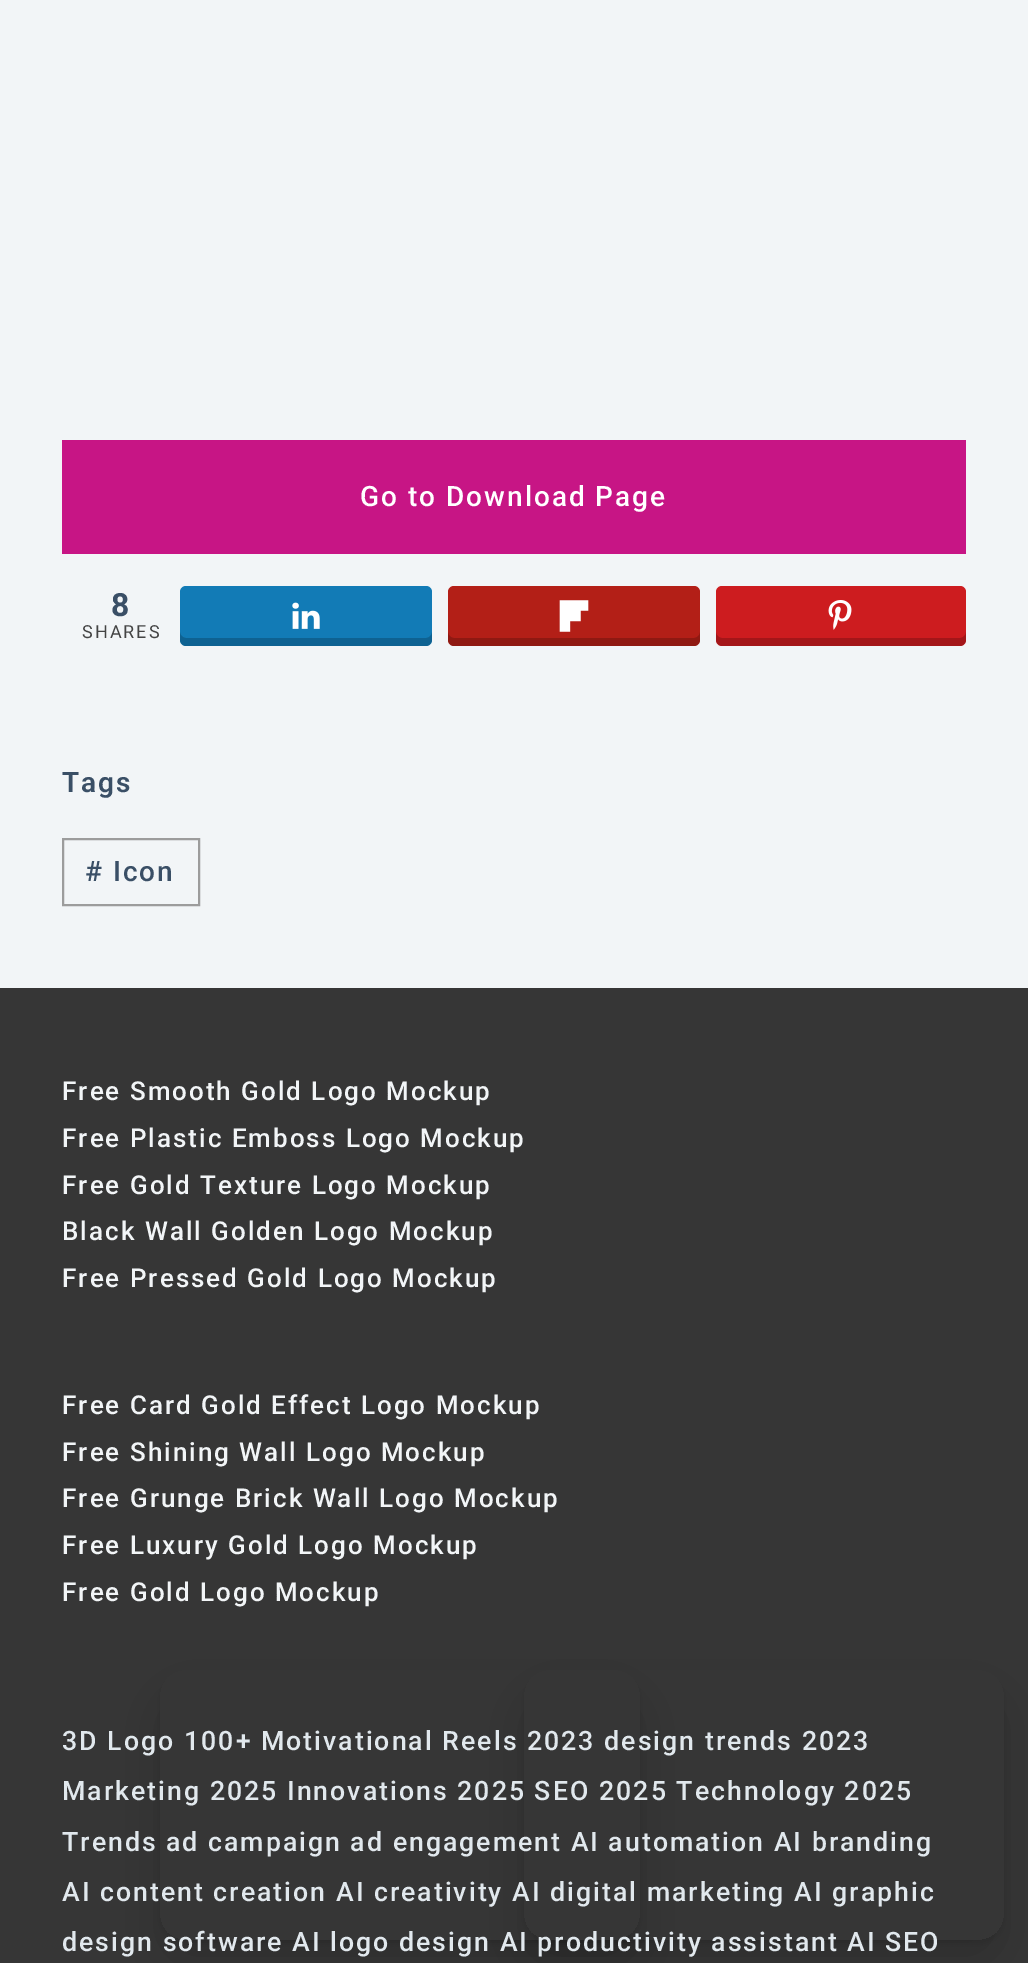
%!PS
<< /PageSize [1028 1963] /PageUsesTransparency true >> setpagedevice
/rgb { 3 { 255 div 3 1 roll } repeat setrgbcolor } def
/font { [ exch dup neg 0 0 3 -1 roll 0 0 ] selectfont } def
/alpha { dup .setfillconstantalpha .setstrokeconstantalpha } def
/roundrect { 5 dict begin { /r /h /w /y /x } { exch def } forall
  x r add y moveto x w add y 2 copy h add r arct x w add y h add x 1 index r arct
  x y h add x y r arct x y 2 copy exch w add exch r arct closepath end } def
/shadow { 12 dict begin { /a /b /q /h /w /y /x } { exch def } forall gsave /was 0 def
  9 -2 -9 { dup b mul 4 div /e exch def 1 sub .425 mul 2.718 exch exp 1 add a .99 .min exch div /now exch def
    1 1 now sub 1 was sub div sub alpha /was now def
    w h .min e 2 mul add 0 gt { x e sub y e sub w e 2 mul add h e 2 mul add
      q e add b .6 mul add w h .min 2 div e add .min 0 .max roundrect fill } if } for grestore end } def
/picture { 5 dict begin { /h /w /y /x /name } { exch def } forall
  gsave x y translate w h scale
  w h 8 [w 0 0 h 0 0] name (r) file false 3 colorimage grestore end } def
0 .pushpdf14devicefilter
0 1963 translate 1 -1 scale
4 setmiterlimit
242 245 247 rgb
0 0 1028 1963 rectfill
199 21 133 rgb
62 440 904 114 rectfill
18 123 182 rgb
180 586 252 60 6 roundrect fill
0.2 alpha
0 0 0 rgb
180 632 moveto 0 8 rlineto 0 3 3 6 6 6 rcurveto 240 0 rlineto 3 0 6 -3 6 -6 rcurveto 0 -8 rlineto 0 3 -3 6 -6 6 rcurveto -240 0 rlineto -3 0 -6 -3 -6 -6 rcurveto closepath fill
1 alpha
(img_01.rgb) 292 602 28 27 picture
179 31 23 rgb
448 586 252 60 6 roundrect fill
0.2 alpha
0 0 0 rgb
448 632 moveto 0 8 rlineto 0 3 3 6 6 6 rcurveto 240 0 rlineto 3 0 6 -3 6 -6 rcurveto 0 -8 rlineto 0 3 -3 6 -6 6 rcurveto -240 0 rlineto -3 0 -6 -3 -6 -6 rcurveto closepath fill
1 alpha
(img_02.rgb) 559 600 30 32 picture
205 28 31 rgb
716 586 250 60 6 roundrect fill
0.2 alpha
0 0 0 rgb
716 632 moveto 0 8 rlineto 0 3 3 6 6 6 rcurveto 238 0 rlineto 3 0 6 -3 6 -6 rcurveto 0 -8 rlineto 0 3 -3 6 -6 6 rcurveto -238 0 rlineto -3 0 -6 -3 -6 -6 rcurveto closepath fill
1 alpha
(img_03.rgb) 828 600 24 30 picture
156 156 156 rgb
2 setlinewidth
63 839 136 66 rectstroke
54 54 54 rgb
0 988 1028 975 rectfill
gsave
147 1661 moveto 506 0 rlineto 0 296 rlineto -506 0 rlineto closepath 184 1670 moveto 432 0 rlineto 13.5 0 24 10.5 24 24 rcurveto 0 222 rlineto 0 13.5 -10.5 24 -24 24 rcurveto -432 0 rlineto -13.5 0 -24 -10.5 -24 -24 rcurveto 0 -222 rlineto 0 -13.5 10.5 -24 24 -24 rcurveto closepath eoclip newpath
0 0 0 rgb
160 1674 480 270 24 4 0.08 shadow
grestore
gsave
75 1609 moveto 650 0 rlineto 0 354 rlineto -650 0 rlineto closepath 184 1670 moveto 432 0 rlineto 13.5 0 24 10.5 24 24 rcurveto 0 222 rlineto 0 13.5 -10.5 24 -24 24 rcurveto -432 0 rlineto -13.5 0 -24 -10.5 -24 -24 rcurveto 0 -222 rlineto 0 -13.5 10.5 -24 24 -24 rcurveto closepath eoclip newpath
0 0 0 rgb
160 1694 480 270 24 28 0.18 shadow
grestore
gsave
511 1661 moveto 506 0 rlineto 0 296 rlineto -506 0 rlineto closepath 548 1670 moveto 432 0 rlineto 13.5 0 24 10.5 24 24 rcurveto 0 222 rlineto 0 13.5 -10.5 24 -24 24 rcurveto -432 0 rlineto -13.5 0 -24 -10.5 -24 -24 rcurveto 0 -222 rlineto 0 -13.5 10.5 -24 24 -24 rcurveto closepath eoclip newpath
0 0 0 rgb
524 1674 480 270 24 4 0.08 shadow
grestore
gsave
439 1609 moveto 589 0 rlineto 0 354 rlineto -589 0 rlineto closepath 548 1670 moveto 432 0 rlineto 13.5 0 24 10.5 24 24 rcurveto 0 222 rlineto 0 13.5 -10.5 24 -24 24 rcurveto -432 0 rlineto -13.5 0 -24 -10.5 -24 -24 rcurveto 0 -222 rlineto 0 -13.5 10.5 -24 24 -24 rcurveto closepath eoclip newpath
0 0 0 rgb
524 1694 480 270 24 28 0.18 shadow
grestore
/Roboto-Medium 28 font
255 255 255 rgb
360 506 moveto 2 0 (Go to Download Page) ashow
/Roboto-Bold 32 font
58 79 102 rgb
111 616 moveto 2 0 (8) ashow
/Roboto-Regular 18 font
68 68 68 rgb
82 638 moveto 2 0 (SHARES) ashow
/Roboto-SemiBold 28 font
58 79 102 rgb
62 792 moveto 2 0 (Tags) ashow
/Roboto-Medium 28 font
85 881 moveto 2 0 (# Icon) ashow
/Roboto-Medium 26 font
242 245 247 rgb
62 1100 moveto 2 0 (Free Smooth Gold Logo Mockup) ashow
62 1147 moveto 2 0 (Free Plastic Emboss Logo Mockup) ashow
62 1194 moveto 2 0 (Free Gold Texture Logo Mockup) ashow
62 1240 moveto 2 0 (Black Wall Golden Logo Mockup) ashow
62 1287 moveto 2 0 (Free Pressed Gold Logo Mockup) ashow
62 1414 moveto 2 0 (Free Card Gold Effect Logo Mockup) ashow
62 1461 moveto 2 0 (Free Shining Wall Logo Mockup) ashow
62 1507 moveto 2 0 (Free Grunge Brick Wall Logo Mockup) ashow
62 1554 moveto 2 0 (Free Luxury Gold Logo Mockup) ashow
62 1601 moveto 2 0 (Free Gold Logo Mockup) ashow
/Roboto-Medium 26.7 font
225 232 237 rgb
62 1750 moveto 2 0 (3D Logo) ashow
184 1750 moveto 2 0 (100+ Motivational Reels 2023 design trends 2023) ashow
62 1800 moveto 2 0 (Marketing 2025 Innovations 2025 SEO) ashow
599 1800 moveto 2 0 (2025 Technology 2025) ashow
62 1851 moveto 2 0 (Trends) ashow
166 1851 moveto 2 0 (ad campaign ad engagement AI automation AI branding) ashow
62 1901 moveto 2 0 (AI content creation AI creativity AI digital marketing AI graphic) ashow
62 1951 moveto 2 0 (design software AI logo design AI productivity assistant AI SEO) ashow
.poppdf14devicefilter showpage
